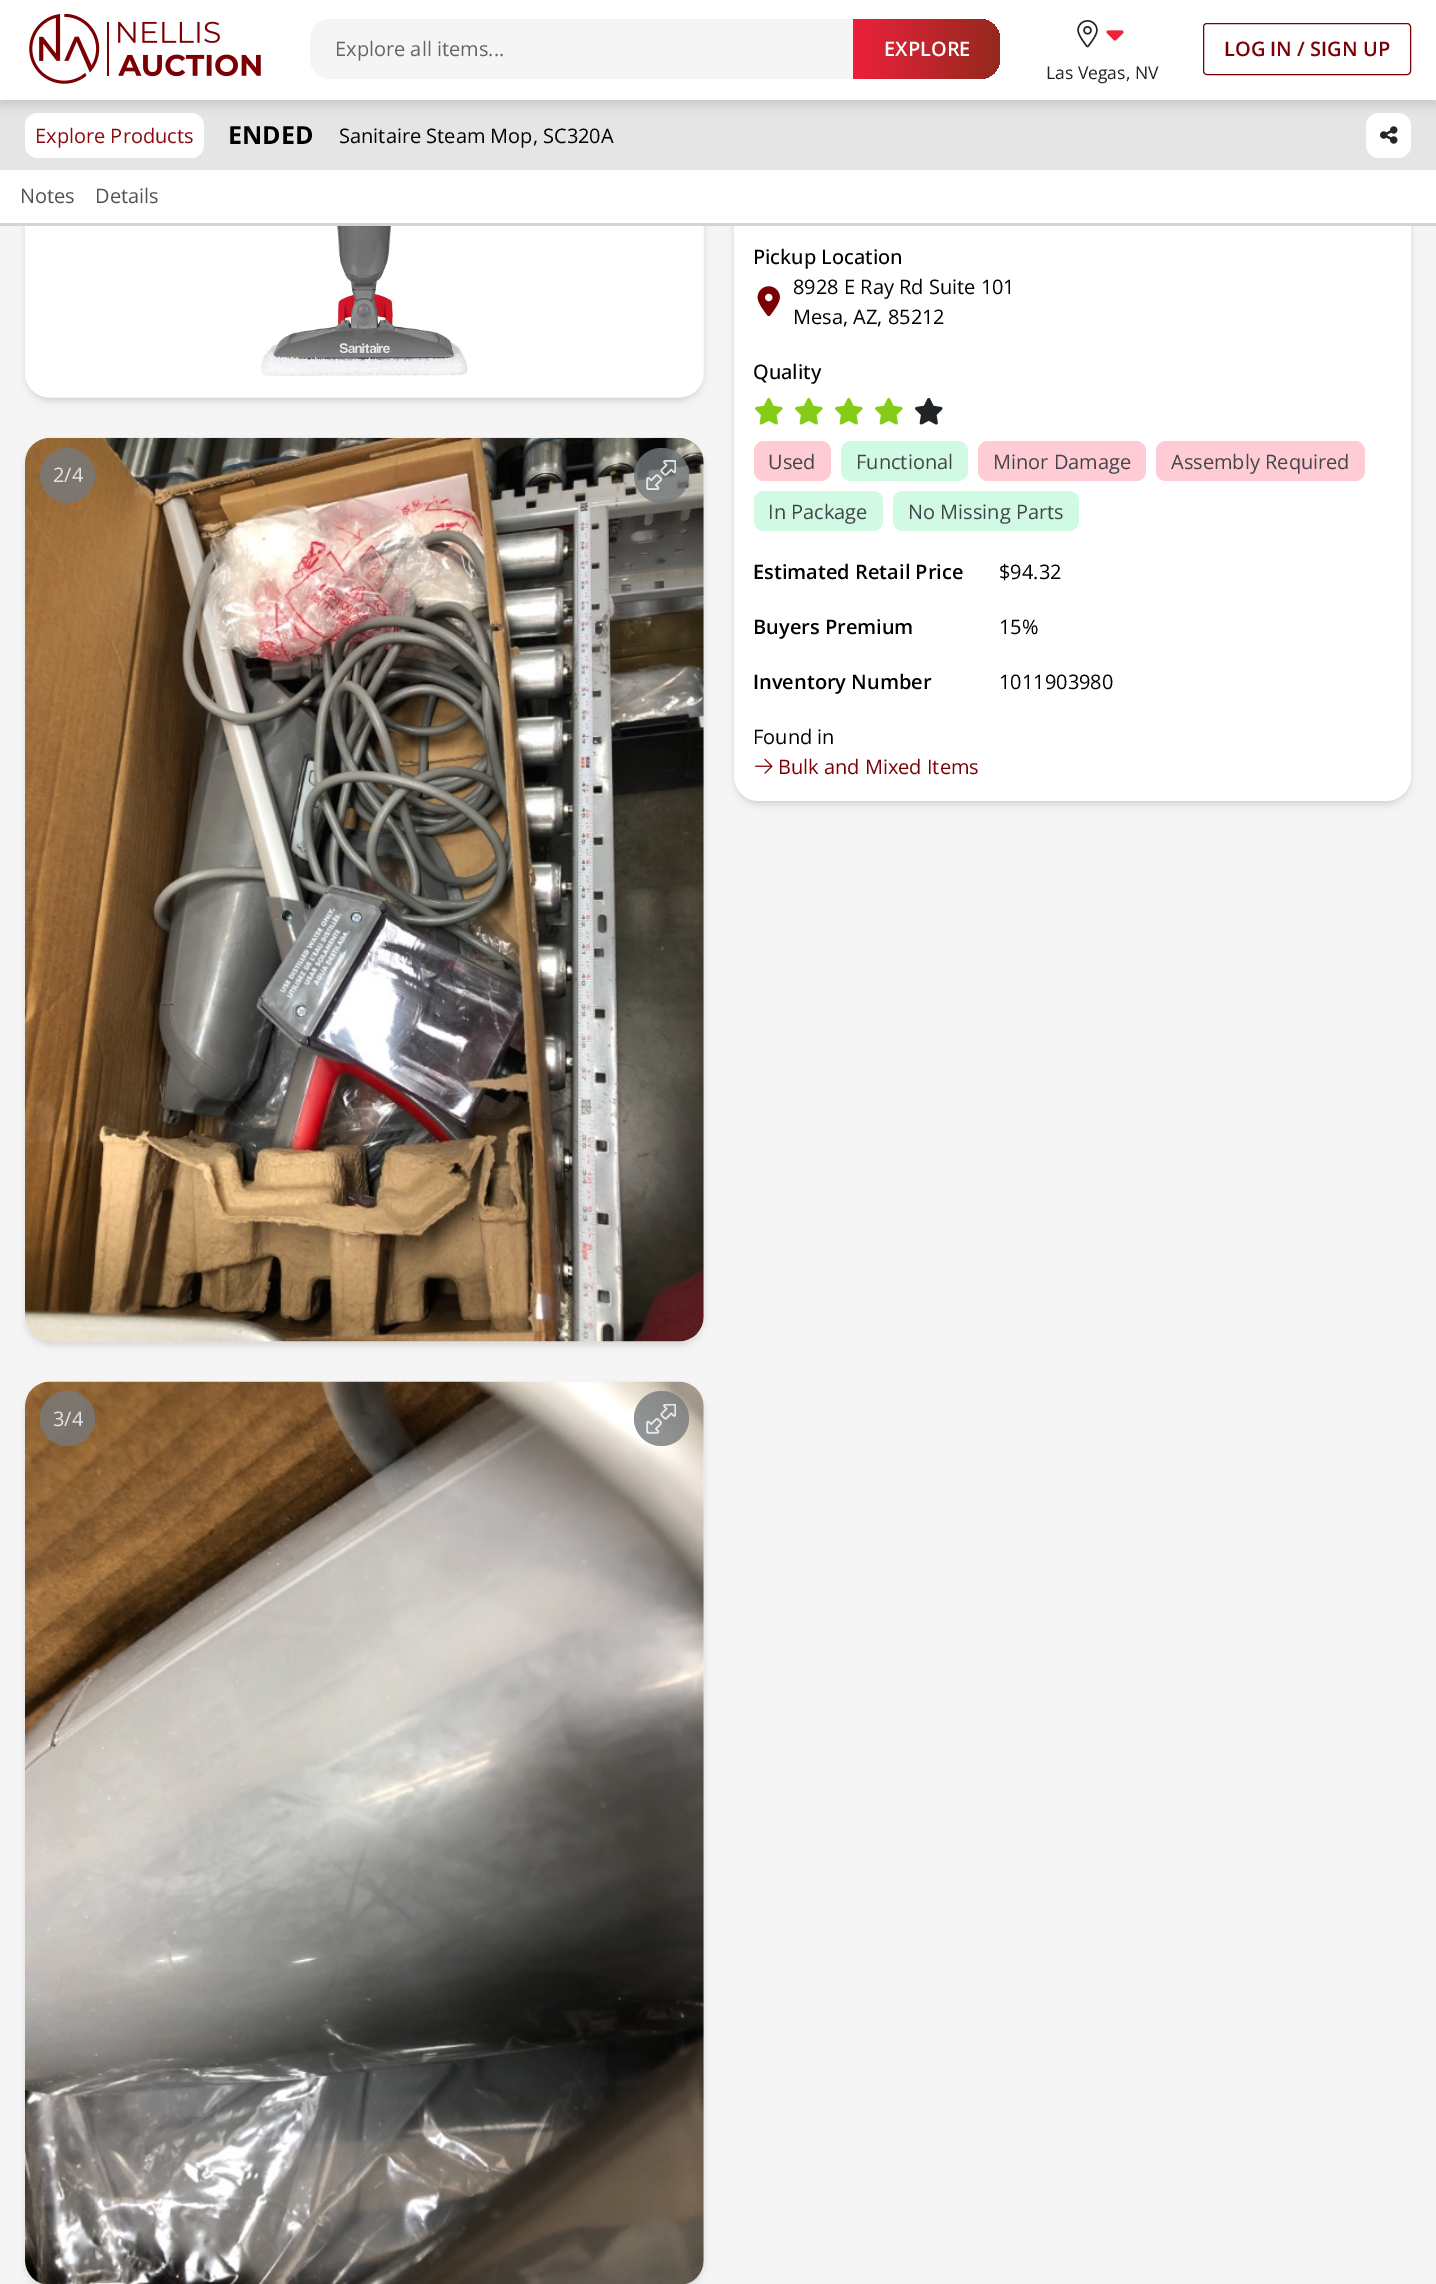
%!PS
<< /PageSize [1436 2284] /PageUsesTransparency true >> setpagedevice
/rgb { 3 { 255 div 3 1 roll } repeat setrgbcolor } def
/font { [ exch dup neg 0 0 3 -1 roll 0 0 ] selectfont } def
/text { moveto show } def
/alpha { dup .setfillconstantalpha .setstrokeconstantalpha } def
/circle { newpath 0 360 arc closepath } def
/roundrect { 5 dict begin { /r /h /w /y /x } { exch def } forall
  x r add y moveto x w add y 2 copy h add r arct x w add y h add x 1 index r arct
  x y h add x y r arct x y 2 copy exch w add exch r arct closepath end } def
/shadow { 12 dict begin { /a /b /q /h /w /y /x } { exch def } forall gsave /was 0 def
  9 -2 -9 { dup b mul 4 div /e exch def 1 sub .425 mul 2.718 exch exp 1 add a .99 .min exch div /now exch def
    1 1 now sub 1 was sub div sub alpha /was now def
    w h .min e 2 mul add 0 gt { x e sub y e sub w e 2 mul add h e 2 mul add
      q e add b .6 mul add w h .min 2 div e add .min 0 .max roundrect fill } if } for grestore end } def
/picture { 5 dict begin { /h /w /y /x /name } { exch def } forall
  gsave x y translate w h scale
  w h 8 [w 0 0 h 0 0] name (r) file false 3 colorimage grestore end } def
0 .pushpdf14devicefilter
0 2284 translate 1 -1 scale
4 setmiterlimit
245 245 245 rgb
0 0 1436 2284 rectfill
0 0 0 rgb
28 -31 673 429 23 2.5 0.1 shadow
26 -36 677 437 24 4 0.1 shadow
229 229 229 rgb
0 100 1436 70 rectfill
255 255 255 rgb
25 113 179 45 13 roundrect fill
1366 113 45 45 13 roundrect fill
33 36 39 rgb
0 5 1436 100 0 5 0.15 shadow
255 255 255 rgb
0 0 1436 100 rectfill
(img_01.rgb) 29 14 232 70 picture
245 245 245 rgb
330 19 moveto 523 0 rlineto 0 60 rlineto -523 0 rlineto -11 0 -20 -9 -20 -20 rcurveto 0 -20 rlineto 0 -11 9 -20 20 -20 rcurveto closepath fill
gsave 853 19 moveto 127 0 rlineto 11 0 20 9 20 20 rcurveto 0 20 rlineto 0 11 -9 20 -20 20 rcurveto -127 0 rlineto closepath clip newpath
<< /ShadingType 2 /ColorSpace /DeviceRGB /Coords [853 49 1000 49] /Extend [true true] /Function << /FunctionType 2 /Domain [0 1] /C0 [0.929 0.129 0.227] /C1 [0.576 0.161 0.118] /N 1 >> >> shfill grestore
123 0 3 rgb
1203.5 23.5 207 51 3.5 roundrect stroke
(img_02.rgb) 1077 20 21 28 picture
(img_03.rgb) 1106 30 18 11 picture
(img_04.rgb) 1380 126 18 18 picture
0 0 0 rgb
736 194 673 607 23 2.5 0.1 shadow
735 195 675 610 24 4 0.1 shadow
255 255 255 rgb
734 189 677 612 25 roundrect fill
0 170 1436 53 rectfill
212 212 212 rgb
0 223 1436 3 rectfill
(img_05.rgb) 25 226 679 172 picture
0 0 0 rgb
28 443 673 898 23 2.5 0.1 shadow
26 444 677 901 24 4 0.1 shadow
(img_06.rgb) 25 437 679 905 picture
0.8 alpha
117 121 124 rgb
67.5 475.5 27.5 circle fill
661.5 475.5 27.5 circle fill
1 alpha
(img_07.rgb) 646 460 30 30 picture
0 0 0 rgb
28 1386 673 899 23 2.5 0.1 shadow
26 1388 677 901 24 4 0.1 shadow
(img_08.rgb) 25 1381 679 903 picture
0.8 alpha
117 121 124 rgb
67.5 1418.5 27.5 circle fill
661.5 1418.5 27.5 circle fill
1 alpha
(img_09.rgb) 646 1404 30 30 picture
(img_10.rgb) 757 286 23 30 picture
(img_11.rgb) 755 397 28 28 picture
(img_11.rgb) 795 397 28 28 picture
(img_11.rgb) 835 397 28 28 picture
(img_11.rgb) 875 397 28 28 picture
(img_12.rgb) 915 397 28 28 picture
255 203 212 rgb
754 441 77 40 10 roundrect fill
209 250 229 rgb
841 441 127 40 10 roundrect fill
255 203 212 rgb
978 441 168 40 10 roundrect fill
1156 441 209 40 10 roundrect fill
209 250 229 rgb
754 491 129 40 10 roundrect fill
893 491 186 40 10 roundrect fill
(img_13.rgb) 755 758 18 16 picture
/OpenSans-Regular 20 font
97 101 104 rgb
(Explore all items...) 335 56 text
/OpenSans-SemiBold 20 font
255 255 255 rgb
(EXPLORE) 884 56 text
123 0 3 rgb
(LOG IN / SIGN UP) 1224 56 text
/OpenSans-Regular 17.5 font
33 36 39 rgb
(Las Vegas, NV) 1046 79 text
/OpenSans-Regular 20 font
138 9 14 rgb
(Explore Products) 35 143 text
/OpenSans-Bold 25 font
0 0 0 rgb
(ENDED) 228 144 text
/OpenSans-Regular 20 font
(Sanitaire Steam Mop, SC320A) 339 143 text
82 82 82 rgb
(Notes) 20 203 text
(Details) 95 203 text
229 228 226 rgb
(2/4) 53 482 text
(3/4) 53 1426 text
/OpenSans-Medium 20 font
0 0 0 rgb
(Pickup Location) 753 264 text
/OpenSans-Regular 20 font
(8928 E Ray Rd Suite 101) 793 294 text
(Mesa, AZ, 85212) 793 324 text
/OpenSans-Medium 20 font
(Quality) 753 379 text
/OpenSans-Regular 20 font
66 69 73 rgb
(Used) 768 469 text
(Functional) 856 469 text
(Minor Damage) 993 469 text
(Assembly Required) 1171 469 text
(In Package) 768 519 text
(No Missing Parts) 908 519 text
/OpenSans-SemiBold 20 font
0 0 0 rgb
(Estimated Retail Price) 753 579 text
/OpenSans-Regular 20 font
($94.32) 999 579 text
/OpenSans-SemiBold 20 font
(Buyers Premium) 753 634 text
/OpenSans-Regular 20 font
(15%) 999 634 text
/OpenSans-SemiBold 20 font
(Inventory Number) 753 689 text
/OpenSans-Regular 20 font
(1011903980) 999 689 text
(Found in) 753 744 text
123 0 3 rgb
(Bulk and Mixed Items) 778 774 text
.poppdf14devicefilter showpage
